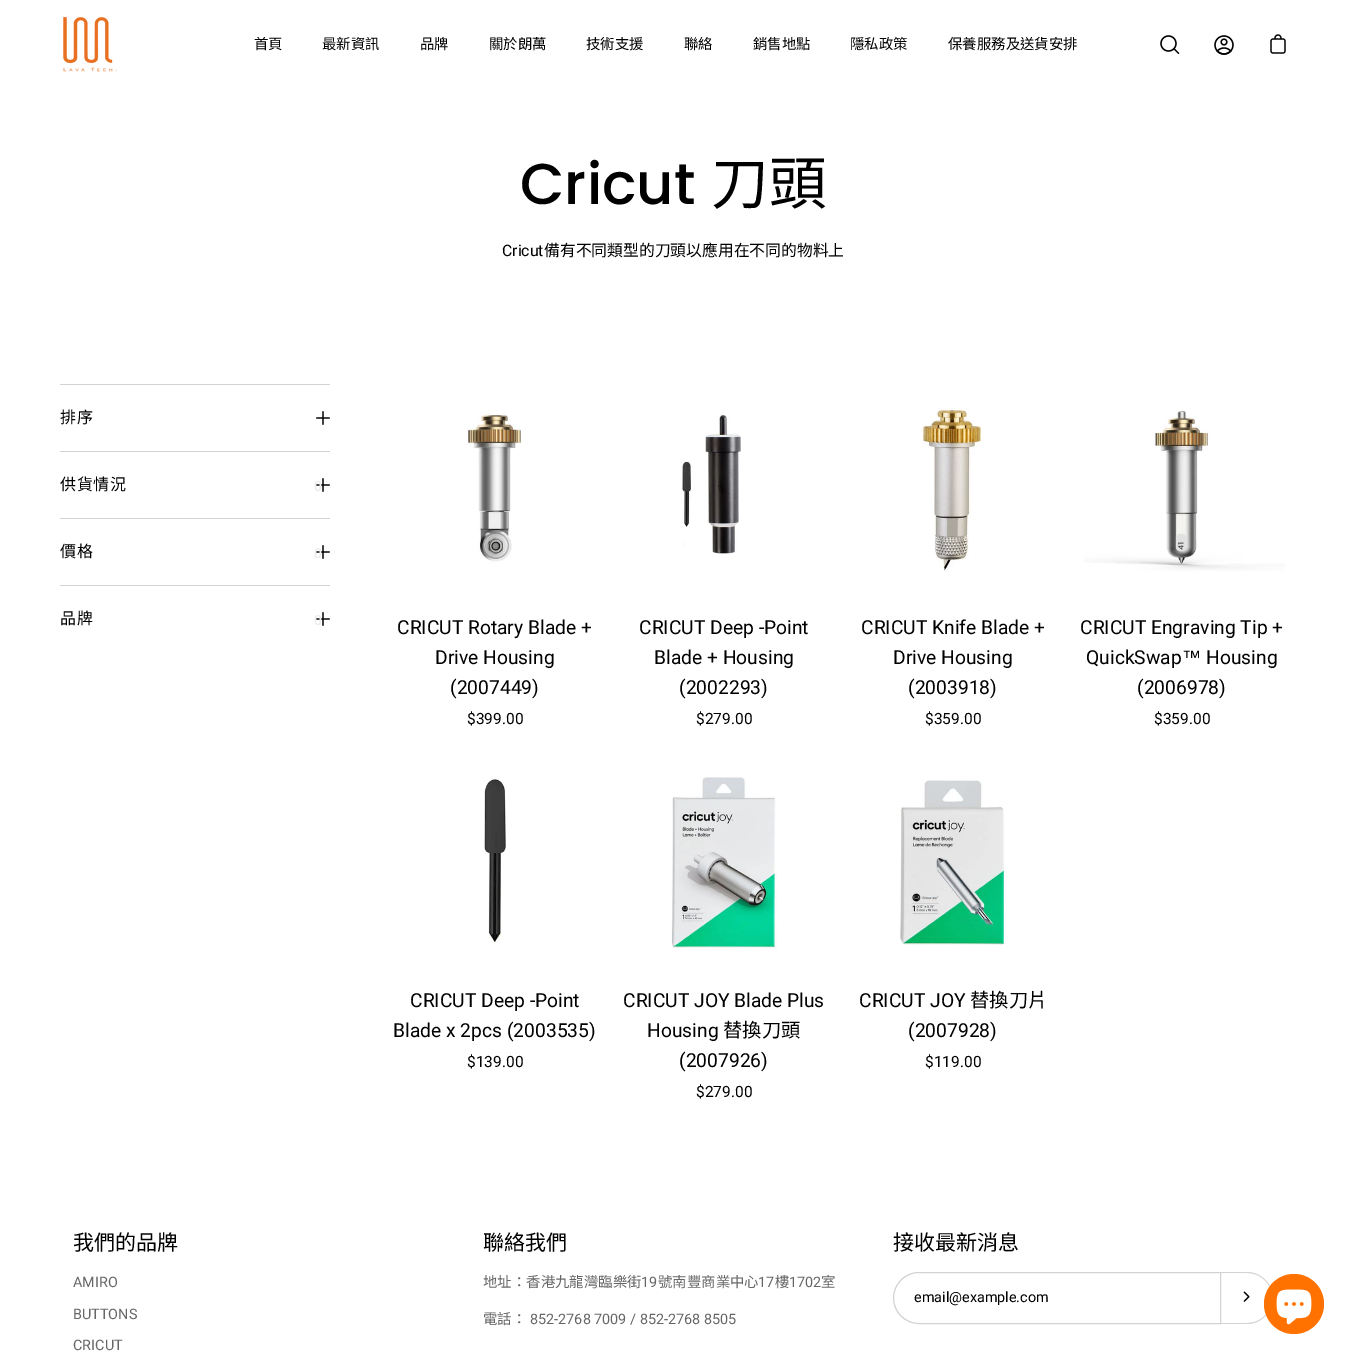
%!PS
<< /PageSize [1346 1355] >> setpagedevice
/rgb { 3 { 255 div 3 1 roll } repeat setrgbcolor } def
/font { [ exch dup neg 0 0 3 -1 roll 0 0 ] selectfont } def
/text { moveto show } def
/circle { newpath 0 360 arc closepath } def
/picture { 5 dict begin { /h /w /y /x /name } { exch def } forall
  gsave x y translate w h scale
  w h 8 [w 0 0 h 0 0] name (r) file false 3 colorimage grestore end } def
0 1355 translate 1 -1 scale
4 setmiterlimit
255 255 255 rgb
0 0 1346 1355 rectfill
(img_01.rgb) 63 16 54 56 picture
(img_02.rgb) 1160 35 20 19 picture
(img_03.rgb) 1214 35 20 20 picture
(img_04.rgb) 1270 34 16 20 picture
211 211 211 rgb
60 384 270 1 rectfill
(img_05.rgb) 316 411 14 14 picture
60 451 270 1 rectfill
(img_05.rgb) 316 478 14 14 picture
60 518 270 1 rectfill
(img_05.rgb) 316 545 14 14 picture
60 585 270 1 rectfill
(img_05.rgb) 316 612 14 14 picture
(img_06.rgb) 467 412 55 151 picture
(img_07.rgb) 682 414 59 140 picture
(img_08.rgb) 922 407 60 164 picture
(img_09.rgb) 1084 410 202 161 picture
(img_10.rgb) 484 779 22 164 picture
(img_11.rgb) 670 777 107 171 picture
(img_12.rgb) 900 780 107 165 picture
919 1272.5 moveto 301.5 0 rlineto 0 51 rlineto -301.5 0 rlineto -14 0 -25.5 -11.5 -25.5 -25.5 rcurveto 0 -14 11.5 -25.5 25.5 -25.5 rcurveto closepath stroke
1221 1272 moveto 26 0 rlineto 14 0 26 12 26 26 rcurveto 0 14 -12 26 -26 26 rcurveto -26 0 rlineto closepath 1221 1273 moveto 26 0 rlineto 14 0 25 11 25 25 rcurveto 0 14 -11 25 -25 25 rcurveto -26 0 rlineto closepath eofill
(img_13.rgb) 1243 1291 7 11 picture
255 114 0 rgb
1294 1304 30 circle fill
(img_14.rgb) 1276 1289 36 36 picture
/NotoSansCJKTC-Regular 14.4 font
0 0 0 rgb
(首頁) 254 49 text
(最新資訊) 322 49 text
(品牌) 420 49 text
(關於朗萬) 489 49 text
(技術支援) 586 49 text
(聯絡) 684 49 text
(銷售地點) 753 49 text
(隱私政策) 850 49 text
(保養服務及送貨安排) 948 49 text
/Poppins-Medium 57.5 font
(Cricut) 520 204 text
/NotoSansCJKTC-Regular 57.5 font
(刀頭) 711 204 text
/Roboto-Regular 15.8 font
(Cricut) 502 256 text
/NotoSansCJKTC-Regular 15.8 font
(備有不同類型的刀頭以應用在不同的物料上) 544 256 text
/NotoSansCJKTC-Regular 16 font
60 423 moveto 0.5 0 (排序) ashow
60 490 moveto 0.5 0 (供貨情況) ashow
/Roboto-Medium 14 font
236 236 236 rgb
314 491 moveto 0.5 0 (0) ashow
/NotoSansCJKTC-Regular 16 font
0 0 0 rgb
60 557 moveto 0.5 0 (價格) ashow
/Roboto-Medium 14 font
236 236 236 rgb
314 558 moveto 0.5 0 (0) ashow
/NotoSansCJKTC-Regular 16 font
0 0 0 rgb
60 624 moveto 0.5 0 (品牌) ashow
/Roboto-Medium 14 font
236 236 236 rgb
314 625 moveto 0.5 0 (0) ashow
/Roboto-Regular 19.25 font
0 0 0 rgb
(CRICUT Rotary Blade +) 397 634 text
(Drive Housing) 435 664 text
(\(2007449\)) 450 694 text
/Roboto-Regular 15.5 font
($399.00) 467 724 text
/Roboto-Regular 19.25 font
(CRICUT Deep -Point) 639 634 text
(Blade + Housing) 654 664 text
(\(2002293\)) 679 694 text
/Roboto-Regular 15.5 font
($279.00) 696 724 text
/Roboto-Regular 19.25 font
(CRICUT Knife Blade +) 861 634 text
(Drive Housing) 893 664 text
(\(2003918\)) 908 694 text
/Roboto-Regular 15.5 font
($359.00) 925 724 text
/Roboto-Regular 19.25 font
(CRICUT Engraving Tip +) 1080 634 text
(QuickSwap) 1086 664 text
/LiberationSans-Regular 19.25 font
(™) 1182 664 text
/Roboto-Regular 19.25 font
(Housing) 1206 664 text
(\(2006978\)) 1137 694 text
/Roboto-Regular 15.5 font
($359.00) 1154 724 text
/Roboto-Regular 19.25 font
(CRICUT Deep -Point) 410 1007 text
(Blade x 2pcs \(2003535\)) 393 1037 text
/Roboto-Regular 15.5 font
($139.00) 467 1067 text
/Roboto-Regular 19.25 font
(CRICUT JOY Blade Plus) 623 1007 text
(Housing) 647 1037 text
/NotoSansCJKTC-Regular 19.25 font
(替換刀頭) 723 1037 text
/Roboto-Regular 19.25 font
(\(2007926\)) 679 1067 text
/Roboto-Regular 15.5 font
($279.00) 696 1097 text
/Roboto-Regular 19.25 font
(CRICUT JOY) 859 1007 text
/NotoSansCJKTC-Regular 19.25 font
(替換刀片) 970 1007 text
/Roboto-Regular 19.25 font
(\(2007928\)) 908 1037 text
/Roboto-Regular 15.5 font
($119.00) 925 1067 text
/NotoSansCJKTC-Regular 21 font
(我們的品牌) 73 1250 text
/Roboto-Regular 14.4 font
102 102 102 rgb
(AMIRO) 73 1287 text
(BUTTONS) 73 1319 text
(CRICUT) 73 1350 text
/NotoSansCJKTC-Regular 21 font
0 0 0 rgb
(聯絡我們) 483 1250 text
/NotoSansCJKTC-Regular 14.4 font
102 102 102 rgb
(地址：香港九龍灣臨樂街) 483 1287 text
/Roboto-Regular 14.4 font
(19) 641 1287 text
/NotoSansCJKTC-Regular 14.4 font
(號南豐商業中心) 658 1287 text
/Roboto-Regular 14.4 font
(17) 758 1287 text
/NotoSansCJKTC-Regular 14.4 font
(樓) 775 1287 text
/Roboto-Regular 14.4 font
(1702) 789 1287 text
/NotoSansCJKTC-Regular 14.4 font
(室) 821 1287 text
(電話：) 483 1324 text
/Roboto-Regular 14.4 font
(852-2768 7009 / 852-2768 8505) 530 1324 text
/NotoSansCJKTC-Regular 21 font
0 0 0 rgb
(接收最新消息) 893 1250 text
/Roboto-Regular 14.4 font
(email@example.com) 914 1302 text
showpage
